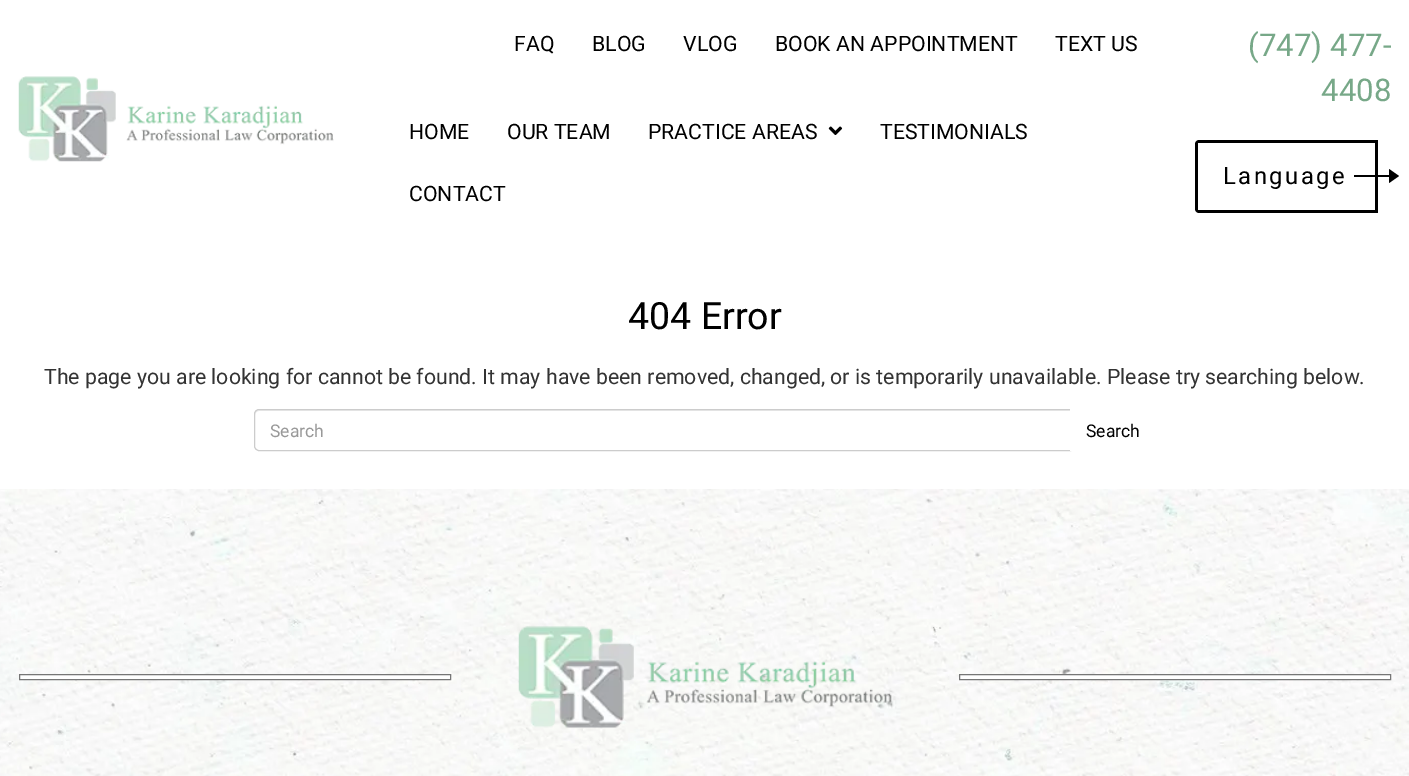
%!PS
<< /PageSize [1409 776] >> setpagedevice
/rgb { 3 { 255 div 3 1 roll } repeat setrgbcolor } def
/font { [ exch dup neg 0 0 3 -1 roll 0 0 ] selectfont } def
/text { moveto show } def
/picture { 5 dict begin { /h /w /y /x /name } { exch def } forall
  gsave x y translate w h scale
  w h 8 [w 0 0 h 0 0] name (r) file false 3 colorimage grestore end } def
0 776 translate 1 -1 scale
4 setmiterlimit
255 255 255 rgb
0 0 1409 776 rectfill
(img_01.rgb) 18 76 316 86 picture
(img_02.rgb) 828 126 15 9 picture
0 0 0 rgb
1199 140 moveto -2 0 -4 2 -4 4 rcurveto 0 65 rlineto 0 2 2 4 4 4 rcurveto 179 0 rlineto 0 -73 rlineto closepath 1198 143 moveto 0 67 rlineto 177 0 rlineto 0 -67 rlineto closepath eofill
1389 169 moveto 0 6 rlineto -35 0 rlineto 0 2 rlineto 35 0 rlineto 0 6 rlineto 10 -7 rlineto closepath fill
236 236 236 rgb
259 411 moveto 811 0 rlineto 0 -1 rlineto -811 0 rlineto -3 0 -4 2 -4 5 rcurveto 0 -2 2 -4 4 -4 rcurveto closepath fill
204 204 204 rgb
259 409.5 moveto 811.5 0 rlineto 0 41 rlineto -811.5 0 rlineto -2.5 0 -4.5 -2 -4.5 -4.5 rcurveto 0 -32 rlineto 0 -2.5 2 -4.5 4.5 -4.5 rcurveto closepath stroke
255 255 255 rgb
1070 409 moveto 81 0 rlineto 3 0 5 2 5 5 rcurveto 0 32 rlineto 0 3 -2 5 -5 5 rcurveto -81 0 rlineto closepath fill
(img_03.rgb) 0 489 1409 287 picture
19.5 674.5 moveto 431 0 rlineto 0 5 rlineto -431 0 rlineto closepath gsave fill grestore
118 118 118 rgb
stroke
(img_04.rgb) 518 626 375 102 picture
255 255 255 rgb
959.5 674.5 moveto 431 0 rlineto 0 5 rlineto -431 0 rlineto closepath gsave fill grestore
118 118 118 rgb
stroke
/Roboto-Regular 21.25 font
0 0 0 rgb
(FAQ) 514 51 text
(BLOG) 592 51 text
(VLOG) 683 51 text
(BOOK AN APPOINTMENT) 775 51 text
(TEXT US) 1055 51 text
(HOME) 409 139 text
(OUR TEAM) 507 139 text
(PRACTICE AREAS) 648 139 text
(TESTIMONIALS) 880 139 text
(CONTACT) 409 201 text
/Roboto-Regular 31.25 font
119 168 136 rgb
(\(747\) 477-) 1248 56 text
(4408) 1321 101 text
/Roboto-Regular 23.75 font
0 0 0 rgb
1223 184 moveto 2.5 0 (Language) ashow
/Roboto-Regular 37.5 font
(404 Error) 628 329 text
/Roboto-Regular 21.25 font
51 51 51 rgb
(The page you are looking for cannot be found. It may have been removed, changed, or is temporarily unavailable. Please try searching below.) 44 384 text
/Roboto-Regular 17.5 font
153 153 153 rgb
(Search) 270 437 text
0 0 0 rgb
(Search) 1086 437 text
showpage
